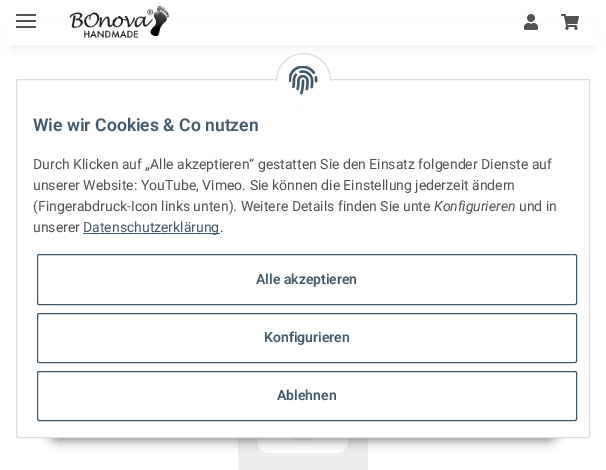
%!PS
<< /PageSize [606 470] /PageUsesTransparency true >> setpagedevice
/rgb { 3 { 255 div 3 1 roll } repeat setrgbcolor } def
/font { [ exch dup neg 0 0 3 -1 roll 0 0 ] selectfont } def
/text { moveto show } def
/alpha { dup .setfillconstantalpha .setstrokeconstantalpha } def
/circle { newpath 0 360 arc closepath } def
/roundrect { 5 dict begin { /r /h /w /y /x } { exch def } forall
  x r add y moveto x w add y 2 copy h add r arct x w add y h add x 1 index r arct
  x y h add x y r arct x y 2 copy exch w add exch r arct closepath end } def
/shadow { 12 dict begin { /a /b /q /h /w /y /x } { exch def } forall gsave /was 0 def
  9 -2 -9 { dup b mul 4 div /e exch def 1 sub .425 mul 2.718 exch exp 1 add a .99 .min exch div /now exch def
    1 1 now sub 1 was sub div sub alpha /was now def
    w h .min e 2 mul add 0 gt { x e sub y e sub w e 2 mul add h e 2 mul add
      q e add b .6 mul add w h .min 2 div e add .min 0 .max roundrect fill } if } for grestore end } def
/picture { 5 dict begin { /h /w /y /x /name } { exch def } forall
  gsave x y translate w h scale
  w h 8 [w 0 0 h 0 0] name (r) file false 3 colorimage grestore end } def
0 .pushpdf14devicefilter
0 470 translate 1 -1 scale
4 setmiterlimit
255 255 255 rgb
0 0 606 470 rectfill
0 0 0 rgb
12 28 582 21 0 4.5 0.06 shadow
255 255 255 rgb
8 24 590 21 rectfill
82 82 82 rgb
16 20 20 2 1 roundrect fill
16 14 20 2 1 roundrect fill
16 26 20 2 1 roundrect fill
(img_01.rgb) 69 6 101 32 picture
(img_02.rgb) 524 14 14 16 picture
(img_03.rgb) 561 14 18 16 picture
(img_05.rgb) 238 438 130 32 picture
0 0 0 rgb
46 409 514 32 16 5 0.45 shadow
255 255 255 rgb
16.5 79.5 573 358 1.5 roundrect gsave fill grestore
221 221 221 rgb
stroke
255 255 255 rgb
303.5 80.5 27 circle gsave fill grestore
221 221 221 rgb
stroke
255 255 255 rgb
276 81 55 27 rectfill
(img_04.rgb) 289 66 29 29 picture
67 90 107 rgb
83 233 137 1 rectfill
37.5 254.5 539 50 1.5 roundrect stroke
37.5 313.5 539 49 1.5 roundrect stroke
37.5 371.5 539 49 1.5 roundrect stroke
/Roboto-SemiBold 17.6 font
(Wie wir Cookies & Co nutzen) 33 131 text
/Roboto-Regular 14 font
82 82 82 rgb
(Durch Klicken auf „Alle akzeptieren“ gestatten Sie den Einsatz folgender Dienste auf) 33 169 text
(unserer Website: YouTube, Vimeo. Sie können die Einstellung jederzeit ändern) 33 190 text
(\(Fingerabdruck-Icon links unten\). Weitere Details finden Sie unte) 33 211 text
/Roboto-Italic 14 font
(Konfigurieren) 434 211 text
/Roboto-Regular 14 font
(und in) 519 211 text
(unserer) 33 232 text
67 90 107 rgb
(Datenschutzerklärung) 83 232 text
82 82 82 rgb
(.) 220 232 text
/Roboto-SemiBold 14 font
67 90 107 rgb
(Alle akzeptieren) 256 284 text
(Konfigurieren) 264 342 text
(Ablehnen) 277 400 text
.poppdf14devicefilter showpage
